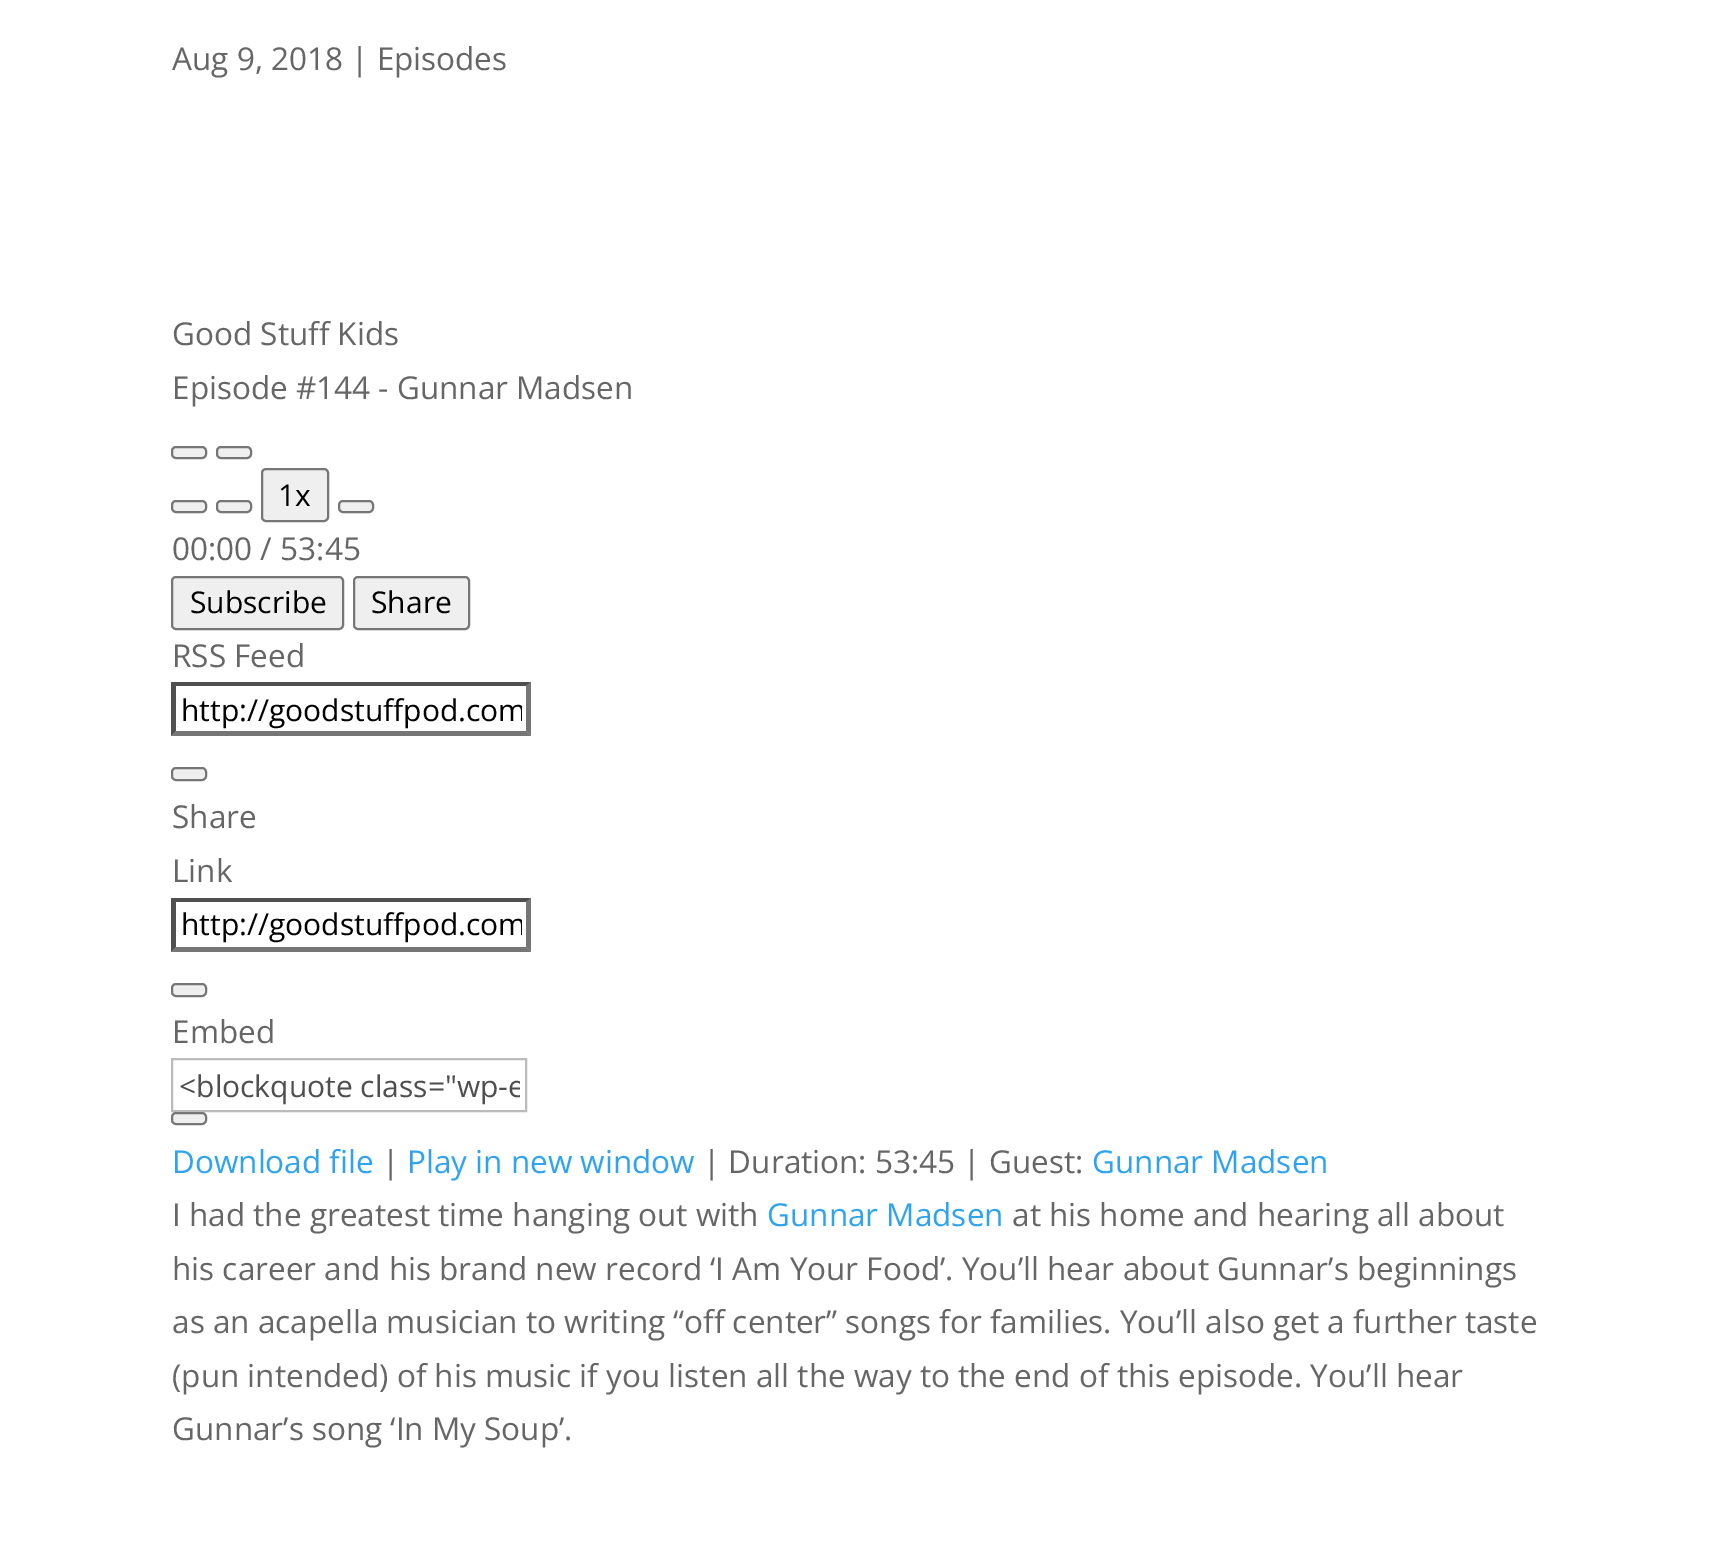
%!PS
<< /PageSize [1718 1556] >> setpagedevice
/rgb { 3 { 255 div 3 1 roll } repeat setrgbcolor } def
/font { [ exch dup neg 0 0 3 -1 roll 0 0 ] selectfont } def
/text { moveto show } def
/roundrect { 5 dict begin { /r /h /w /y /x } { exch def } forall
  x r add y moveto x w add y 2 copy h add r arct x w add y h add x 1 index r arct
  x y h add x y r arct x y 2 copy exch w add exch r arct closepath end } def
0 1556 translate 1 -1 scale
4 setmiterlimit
255 255 255 rgb
0 0 1718 1556 rectfill
239 239 239 rgb
172 447 34 11 4 roundrect gsave fill grestore
118 118 118 rgb
2 setlinewidth
stroke
239 239 239 rgb
217 447 34 11 4 roundrect gsave fill grestore
118 118 118 rgb
stroke
239 239 239 rgb
172 501 34 11 4 roundrect gsave fill grestore
118 118 118 rgb
stroke
239 239 239 rgb
217 501 34 11 4 roundrect gsave fill grestore
118 118 118 rgb
stroke
239 239 239 rgb
262 469 66 52 4 roundrect gsave fill grestore
118 118 118 rgb
stroke
239 239 239 rgb
339 501 34 11 4 roundrect gsave fill grestore
118 118 118 rgb
stroke
239 239 239 rgb
172 577 171 52 4 roundrect gsave fill grestore
118 118 118 rgb
stroke
239 239 239 rgb
354 577 115 52 4 roundrect gsave fill grestore
118 118 118 rgb
stroke
79 79 79 rgb
171 682 moveto 360 0 rlineto -5 4 rlineto -350 0 rlineto closepath fill
118 118 118 rgb
531 682 moveto 0 54 rlineto -5 -5 rlineto 0 -45 rlineto closepath fill
531 736 moveto -360 0 rlineto 5 -5 rlineto 350 0 rlineto closepath fill
79 79 79 rgb
171 736 moveto 0 -54 rlineto 5 4 rlineto 0 45 rlineto closepath fill
239 239 239 rgb
172 768 34 12 4 roundrect gsave fill grestore
118 118 118 rgb
stroke
79 79 79 rgb
171 898 moveto 360 0 rlineto -5 4 rlineto -350 0 rlineto closepath fill
118 118 118 rgb
531 898 moveto 0 54 rlineto -5 -5 rlineto 0 -45 rlineto closepath fill
531 952 moveto -360 0 rlineto 5 -5 rlineto 350 0 rlineto closepath fill
79 79 79 rgb
171 952 moveto 0 -54 rlineto 5 4 rlineto 0 45 rlineto closepath fill
239 239 239 rgb
172 984 34 12 4 roundrect gsave fill grestore
118 118 118 rgb
stroke
187 187 187 rgb
172 1059 354 52 rectstroke
239 239 239 rgb
172 1113 34 11 4 roundrect gsave fill grestore
118 118 118 rgb
stroke
/OpenSans-Regular 31.5 font
102 102 102 rgb
(Aug 9, 2018 | Episodes) 172 70 text
(Good Stuff Kids) 172 345 text
(Episode #144 - Gunnar Madsen) 172 399 text
/OpenSans-Regular 30 font
0 0 0 rgb
(1x) 278 506 text
/OpenSans-Regular 31.5 font
102 102 102 rgb
(00:00 / 53:45) 172 560 text
/OpenSans-Regular 30 font
0 0 0 rgb
(Subscribe) 190 613 text
(Share) 371 613 text
/OpenSans-Regular 31.5 font
102 102 102 rgb
(RSS Feed) 172 667 text
gsave
180 689 342 40 rectclip
/OpenSans-Regular 30 font
0 0 0 rgb
(http://goodstuffpod.com) 181 721 text
grestore
(Share) 172 828 text
(Link) 172 882 text
gsave
180 905 342 40 rectclip
/OpenSans-Regular 30 font
0 0 0 rgb
(http://goodstuffpod.com) 181 935 text
grestore
(Embed) 172 1043 text
gsave
178 1064 342 41 rectclip
/OpenSans-Regular 30 font
78 78 78 rgb
(<blockquote class="wp-e) 179 1097 text
grestore
46 163 242 rgb
(Download file) 172 1173 text
102 102 102 rgb
(|) 382 1173 text
46 163 242 rgb
(Play in new window) 407 1173 text
102 102 102 rgb
(| Duration: 53:45 | Guest:) 703 1173 text
46 163 242 rgb
(Gunnar Madsen) 1092 1173 text
102 102 102 rgb
(I had the greatest time hanging out with) 172 1226 text
46 163 242 rgb
(Gunnar Madsen) 767 1226 text
102 102 102 rgb
(at his home and hearing all about) 1012 1226 text
(his career and his brand new record ‘I Am Your Food’. You’ll hear about Gunnar’s beginnings) 172 1280 text
(as an acapella musician to writing “off center” songs for families. You’ll also get a further taste) 172 1333 text
(\(pun intended\) of his music if you listen all the way to the end of this episode. You’ll hear) 172 1387 text
(Gunnar’s song ‘In My Soup’.) 172 1440 text
showpage
